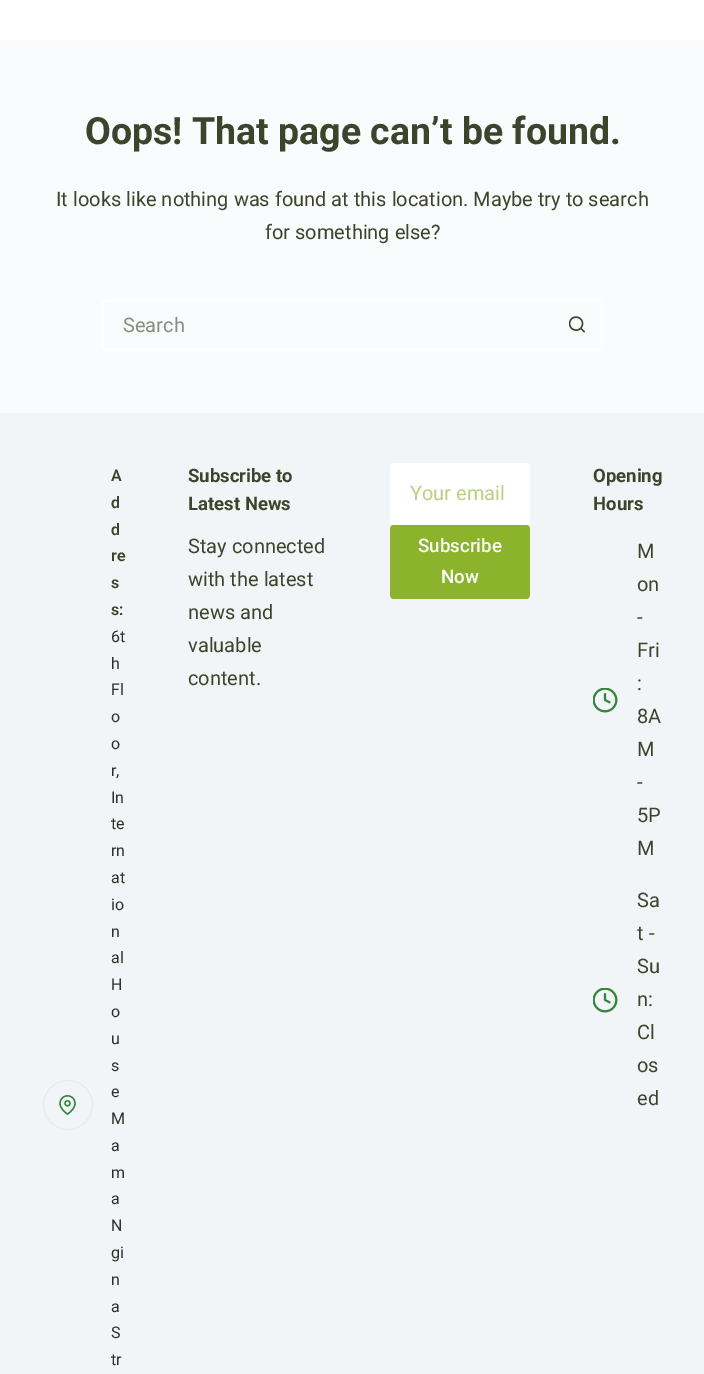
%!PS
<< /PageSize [704 1374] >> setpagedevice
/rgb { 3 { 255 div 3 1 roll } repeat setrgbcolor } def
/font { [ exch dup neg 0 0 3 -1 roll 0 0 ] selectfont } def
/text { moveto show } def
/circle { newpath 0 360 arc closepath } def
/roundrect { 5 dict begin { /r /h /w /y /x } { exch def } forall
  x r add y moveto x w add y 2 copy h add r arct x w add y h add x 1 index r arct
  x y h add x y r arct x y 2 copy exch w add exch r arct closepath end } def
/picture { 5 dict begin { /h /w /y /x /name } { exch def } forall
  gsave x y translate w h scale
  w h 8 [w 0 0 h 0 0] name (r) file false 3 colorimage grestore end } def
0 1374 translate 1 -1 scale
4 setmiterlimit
250 251 252 rgb
0 0 704 1374 rectfill
255 255 255 rgb
0 0 704 40 rectfill
106 300 moveto 446 0 rlineto 0 50 rlineto -446 0 rlineto -2 0 -4 -2 -4 -4 rcurveto 0 -42 rlineto 0 -2 2 -4 4 -4 rcurveto closepath 106 301 moveto 446 0 rlineto 0 48 rlineto -446 0 rlineto -1 0 -2 -1 -2 -3 rcurveto 0 -42 rlineto 0 -2 1 -3 2 -3 rcurveto closepath eofill
552 300 moveto 47 0 rlineto 2 0 3 2 3 4 rcurveto 0 42 rlineto 0 2 -1 4 -3 4 rcurveto -47 0 rlineto closepath 552 301 moveto 47 0 rlineto 1 0 2 1 2 3 rcurveto 0 42 rlineto 0 2 -1 3 -2 3 rcurveto -47 0 rlineto closepath eofill
(img_01.rgb) 569 316 16 17 picture
242 245 247 rgb
0 413 704 961 rectfill
230 234 238 rgb
68 1105 24.5 circle stroke
(img_02.rgb) 59 1095 17 20 picture
255 255 255 rgb
390.5 463.5 139 61 3.5 roundrect gsave fill grestore
stroke
139 179 44 rgb
390 525 140 74 4 roundrect fill
(img_03.rgb) 593 688 25 25 picture
(img_03.rgb) 593 988 25 25 picture
/Roboto-Bold 37.5 font
60 68 44 rgb
(Oops! That page can’t be found.) 85 144 text
/Roboto-Regular 20 font
(It looks like nothing was found at this location. Maybe try to search) 56 206 text
(for something else?) 265 239 text
136 141 127 rgb
(Search) 123 332 text
/Roboto-SemiBold 16 font
60 68 44 rgb
(A) 111 481 text
(d) 111 508 text
(d) 111 535 text
(re) 111 561 text
(s) 111 588 text
(s:) 111 615 text
/Roboto-Regular 16 font
44 49 44 rgb
(6t) 111 642 text
(h) 111 669 text
(Fl) 111 695 text
(o) 111 722 text
(o) 111 749 text
(r,) 111 776 text
(In) 111 803 text
(te) 111 829 text
(rn) 111 856 text
(at) 111 883 text
(io) 111 910 text
(n) 111 937 text
(al) 111 963 text
(H) 111 990 text
(o) 111 1017 text
(u) 111 1044 text
(s) 111 1071 text
(e) 111 1097 text
(M) 111 1124 text
(a) 111 1151 text
(m) 111 1178 text
(a) 111 1204 text
(N) 111 1231 text
(gi) 111 1258 text
(n) 111 1285 text
(a) 111 1312 text
(S) 111 1338 text
(tr) 111 1365 text
/Roboto-Bold 18.5 font
60 68 44 rgb
(Subscribe to) 188 482 text
(Latest News) 188 510 text
/Roboto-Regular 20 font
(Stay connected) 188 553 text
(with the latest) 188 586 text
(news and) 188 619 text
(valuable) 188 652 text
(content.) 188 685 text
185 209 128 rgb
(Your email) 410 500 text
/Roboto-Medium 18.75 font
255 255 255 rgb
(Subscribe) 418 552 text
(Now) 441 583 text
/Roboto-Bold 18.5 font
60 68 44 rgb
(Opening) 593 482 text
(Hours) 593 510 text
/Roboto-Regular 20 font
(M) 637 558 text
(on) 637 591 text
(-) 637 624 text
(Fri) 637 657 text
(:) 637 690 text
(8A) 637 723 text
(M) 637 756 text
(-) 637 789 text
(5P) 637 822 text
(M) 637 855 text
(Sa) 637 907 text
(t -) 637 940 text
(Su) 637 973 text
(n:) 637 1006 text
(Cl) 637 1039 text
(os) 637 1072 text
(ed) 637 1105 text
showpage
